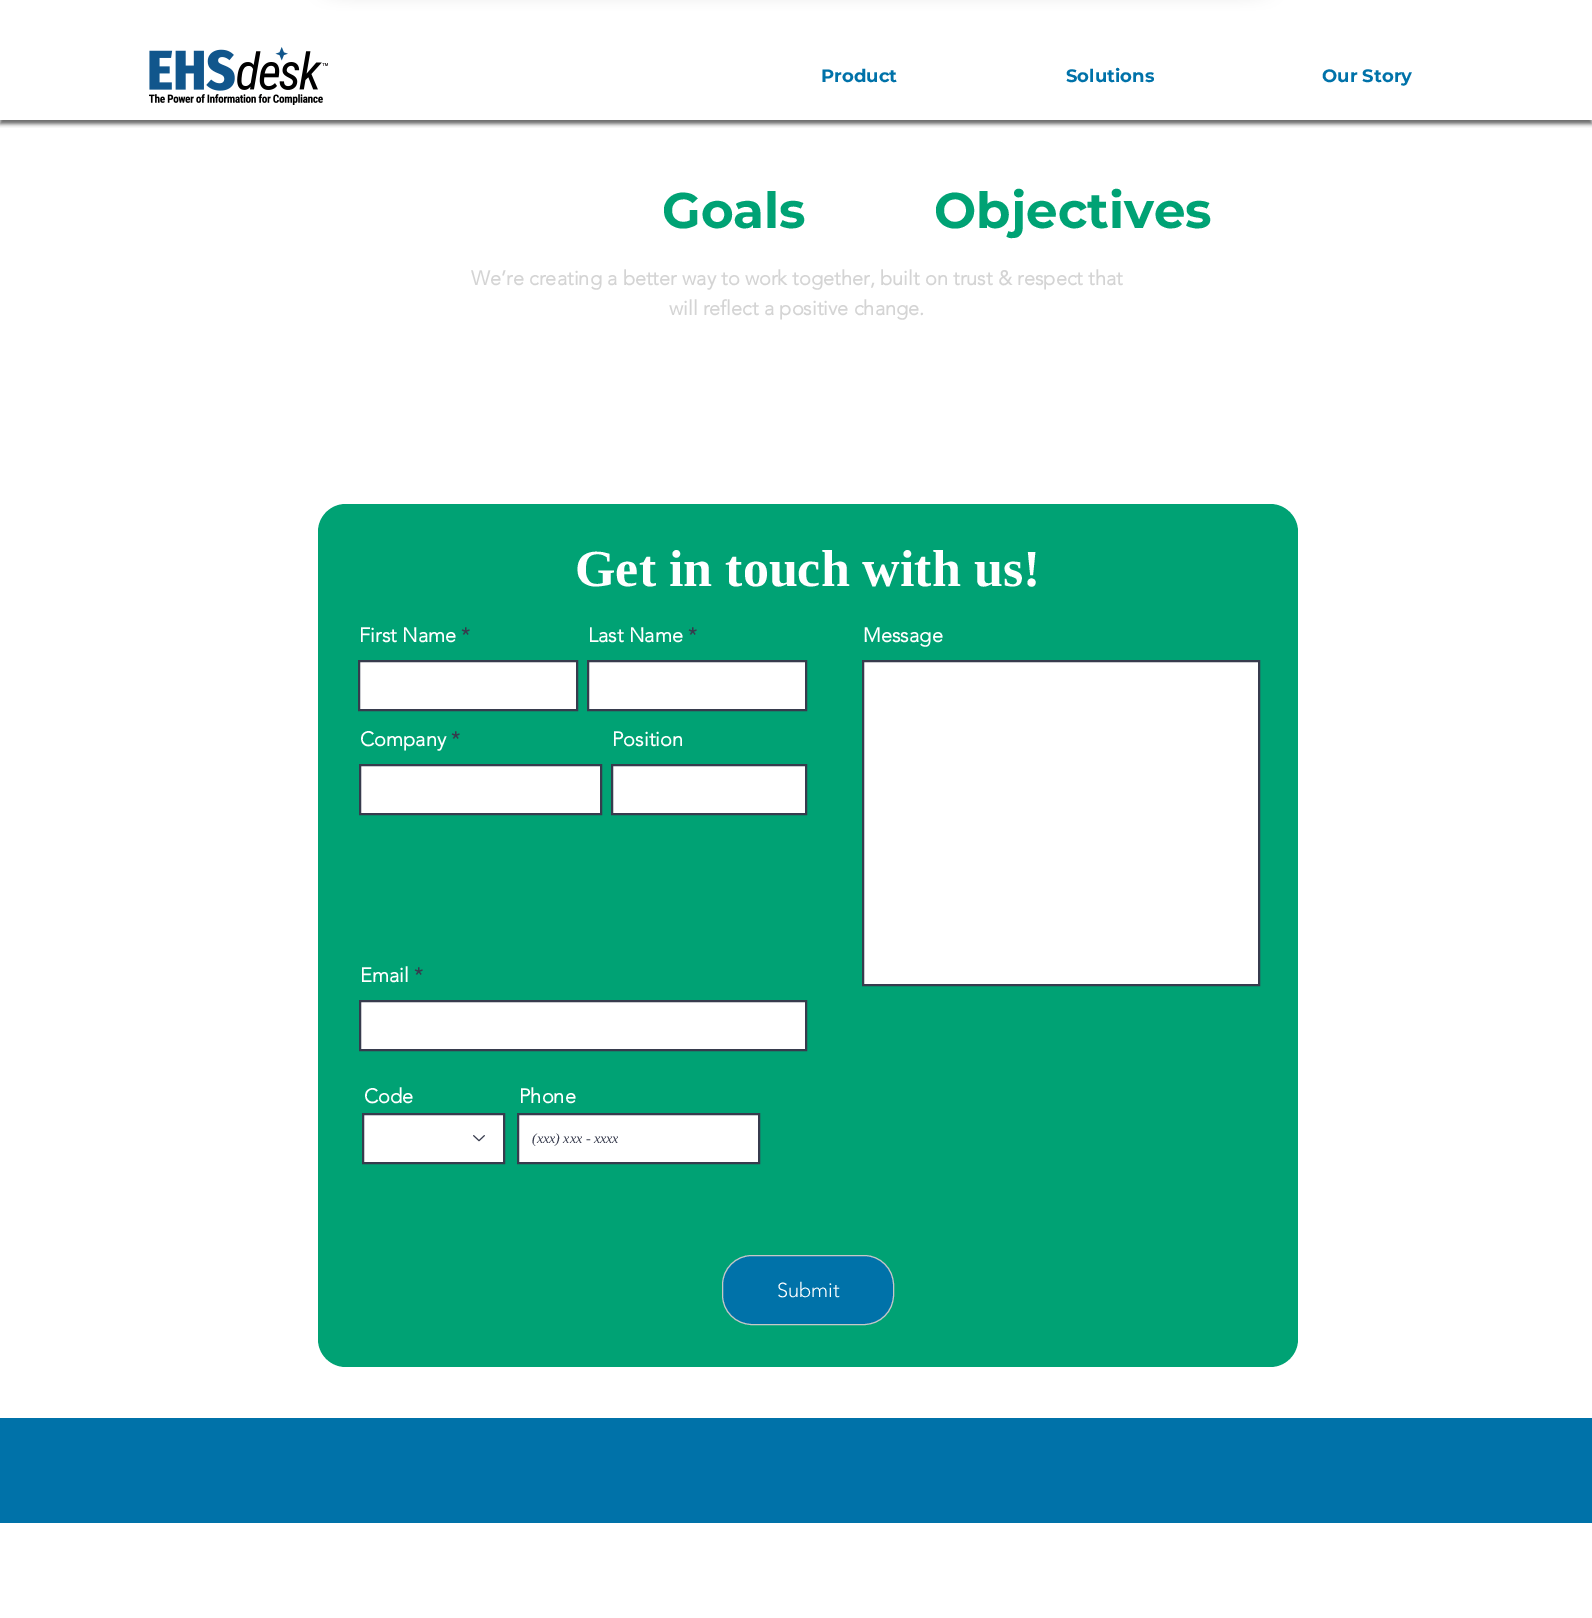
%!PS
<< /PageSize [1592 1618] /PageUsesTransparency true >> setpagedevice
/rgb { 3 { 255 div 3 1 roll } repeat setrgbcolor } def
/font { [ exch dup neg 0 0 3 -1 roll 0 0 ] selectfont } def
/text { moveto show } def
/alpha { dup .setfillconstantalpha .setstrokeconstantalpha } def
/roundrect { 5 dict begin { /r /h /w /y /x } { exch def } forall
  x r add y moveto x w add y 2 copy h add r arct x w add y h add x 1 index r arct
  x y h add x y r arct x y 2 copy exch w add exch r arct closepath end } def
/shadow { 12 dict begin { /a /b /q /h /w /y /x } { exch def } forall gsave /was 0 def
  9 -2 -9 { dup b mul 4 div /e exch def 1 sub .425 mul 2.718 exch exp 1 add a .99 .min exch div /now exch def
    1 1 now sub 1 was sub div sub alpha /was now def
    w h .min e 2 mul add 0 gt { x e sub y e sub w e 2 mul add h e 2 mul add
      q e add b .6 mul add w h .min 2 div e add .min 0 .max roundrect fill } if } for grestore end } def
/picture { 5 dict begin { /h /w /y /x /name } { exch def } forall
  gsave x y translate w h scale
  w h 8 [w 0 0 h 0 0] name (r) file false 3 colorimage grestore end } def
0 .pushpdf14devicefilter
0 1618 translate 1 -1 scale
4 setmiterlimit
255 255 255 rgb
0 0 1592 1618 rectfill
(img_01.rgb) 309 0 97 11 picture
(img_02.rgb) 406 0 780 11 picture
(img_03.rgb) 1186 0 97 11 picture
gsave
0 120 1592 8 rectclip
0 0 0 rgb
0 4 1592 120 0 2 0.6 shadow
grestore
(img_04.rgb) 149 47 179 58 picture
0 162 116 rgb
318 504 980 863 28 roundrect fill
255 255 255 rgb
359 661 moveto 218 0 rlineto 0 49 rlineto -218 0 rlineto closepath gsave fill grestore
55 59 77 rgb
2 setlinewidth
stroke
255 255 255 rgb
588 661 moveto 218 0 rlineto 0 49 rlineto -218 0 rlineto closepath gsave fill grestore
55 59 77 rgb
stroke
255 255 255 rgb
863 661 moveto 396 0 rlineto 0 324 rlineto -396 0 rlineto closepath gsave fill grestore
55 59 77 rgb
stroke
255 255 255 rgb
360 765 moveto 241 0 rlineto 0 49 rlineto -241 0 rlineto closepath gsave fill grestore
55 59 77 rgb
stroke
255 255 255 rgb
612 765 moveto 194 0 rlineto 0 49 rlineto -194 0 rlineto closepath gsave fill grestore
55 59 77 rgb
stroke
255 255 255 rgb
360 1001 moveto 446 0 rlineto 0 49 rlineto -446 0 rlineto closepath gsave fill grestore
55 59 77 rgb
stroke
255 255 255 rgb
363 1114 moveto 141 0 rlineto 0 49 rlineto -141 0 rlineto closepath gsave fill grestore
55 59 77 rgb
stroke
(img_05.rgb) 473 1135 12 7 picture
255 255 255 rgb
518 1114 moveto 241 0 rlineto 0 49 rlineto -241 0 rlineto closepath gsave fill grestore
55 59 77 rgb
stroke
0 114 169 rgb
722.5 1255.5 171 69 29.5 roundrect gsave fill grestore
199 199 199 rgb
1 setlinewidth
stroke
0 114 169 rgb
0 1418 1592 105 rectfill
/Montserrat-Bold 18 font
(Product) 821 82 text
(Solutions) 1066 82 text
(Our Story) 1322 82 text
/Montserrat-Bold 50 font
0 162 116 rgb
(Goals) 662 228 text
(Objectives) 934 228 text
/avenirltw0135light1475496-Bold 20 font
212 212 212 rgb
(We’re creating a better way to work together, built on trust & respect that) 471 285 text
(will reflect a positive change.) 669 315 text
/LiberationSerif-Bold 52 font
255 255 255 rgb
(Get in touch with us!) 575 586 text
/avenirltw0135light1475496-Bold 20 font
(First Name) 359 642 text
55 59 77 rgb
(*) 461 642 text
255 255 255 rgb
(Last Name) 588 642 text
55 59 77 rgb
(*) 688 642 text
255 255 255 rgb
(Message) 863 642 text
(Company) 360 746 text
55 59 77 rgb
(*) 451 746 text
255 255 255 rgb
(Position) 612 746 text
(Email) 360 982 text
55 59 77 rgb
(*) 414 982 text
255 255 255 rgb
(Code) 364 1103 text
(Phone) 519 1103 text
/LiberationSerif-Italic 14 font
55 59 77 rgb
(\(xxx\) xxx - xxxx) 532 1143 text
/avenirltw0135light1475496-Light 20 font
255 255 255 rgb
(Submit) 777 1297 text
.poppdf14devicefilter showpage
